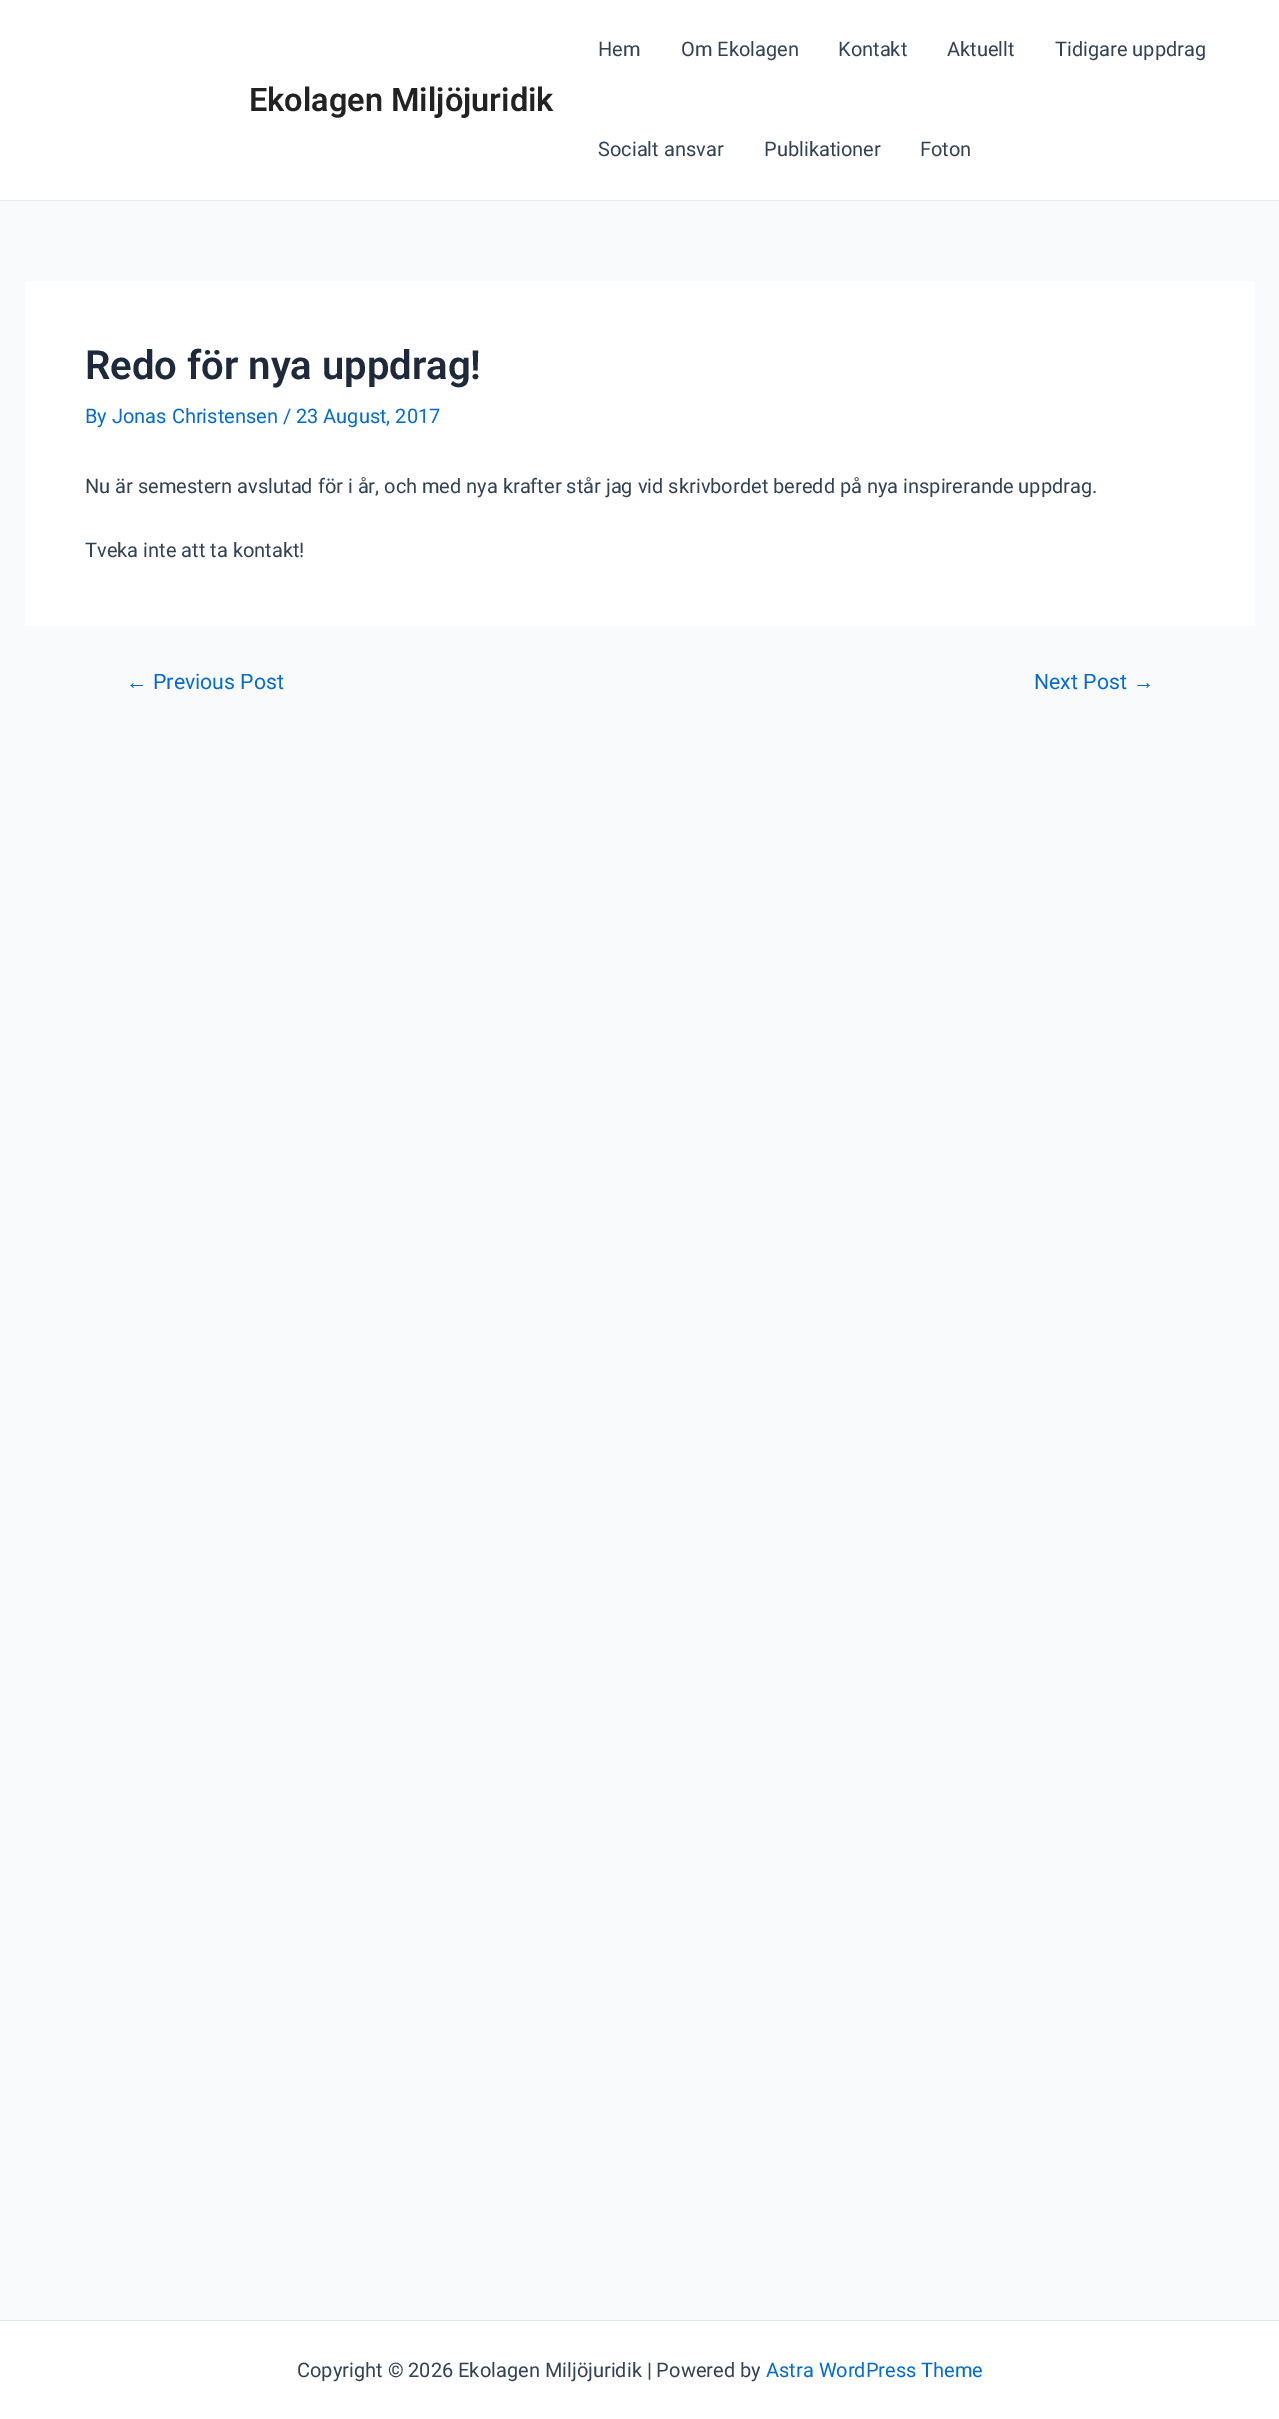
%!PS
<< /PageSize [1279 2419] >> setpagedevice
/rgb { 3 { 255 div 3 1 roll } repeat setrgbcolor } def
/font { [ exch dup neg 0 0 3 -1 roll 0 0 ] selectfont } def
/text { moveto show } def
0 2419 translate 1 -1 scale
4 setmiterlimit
249 250 251 rgb
0 0 1279 2419 rectfill
255 255 255 rgb
0 0 1279 200 rectfill
234 234 234 rgb
0 200 1279 1 rectfill
255 255 255 rgb
25 281 1230 345 rectfill
0 2321 1279 98 rectfill
226 232 240 rgb
0 2320 1279 1 rectfill
/Roboto-SemiBold 32.5 font
34 34 34 rgb
(Ekolagen Miljöjuridik) 249 111 text
/Roboto-Regular 20 font
51 65 85 rgb
(Hem) 598 56 text
(Om Ekolagen) 681 56 text
(Kontakt) 838 56 text
(Aktuellt) 947 56 text
(Tidigare uppdrag) 1055 56 text
(Socialt ansvar) 598 156 text
(Publikationer) 764 156 text
(Foton) 920 156 text
/Roboto-SemiBold 40 font
30 41 59 rgb
(Redo för nya uppdrag!) 85 379 text
/Roboto-Regular 20 font
4 107 210 rgb
(By Jonas Christensen / 23 August, 2017) 85 423 text
51 65 85 rgb
(Nu är semestern avslutad för i år, och med nya krafter står jag vid skrivbordet beredd på nya inspirerande uppdrag.) 85 493 text
(Tveka inte att ta kontakt!) 85 557 text
/LiberationSans-Regular 21.25 font
4 107 210 rgb
(←) 126 689 text
/Roboto-Regular 21.25 font
(Previous Post) 153 689 text
(Next Post) 1034 689 text
/LiberationSans-Regular 21.25 font
(→) 1133 689 text
/Roboto-Regular 20 font
51 65 85 rgb
(Copyright © 2026 Ekolagen Miljöjuridik | Powered by) 297 2377 text
4 107 210 rgb
(Astra WordPress Theme) 766 2377 text
showpage
